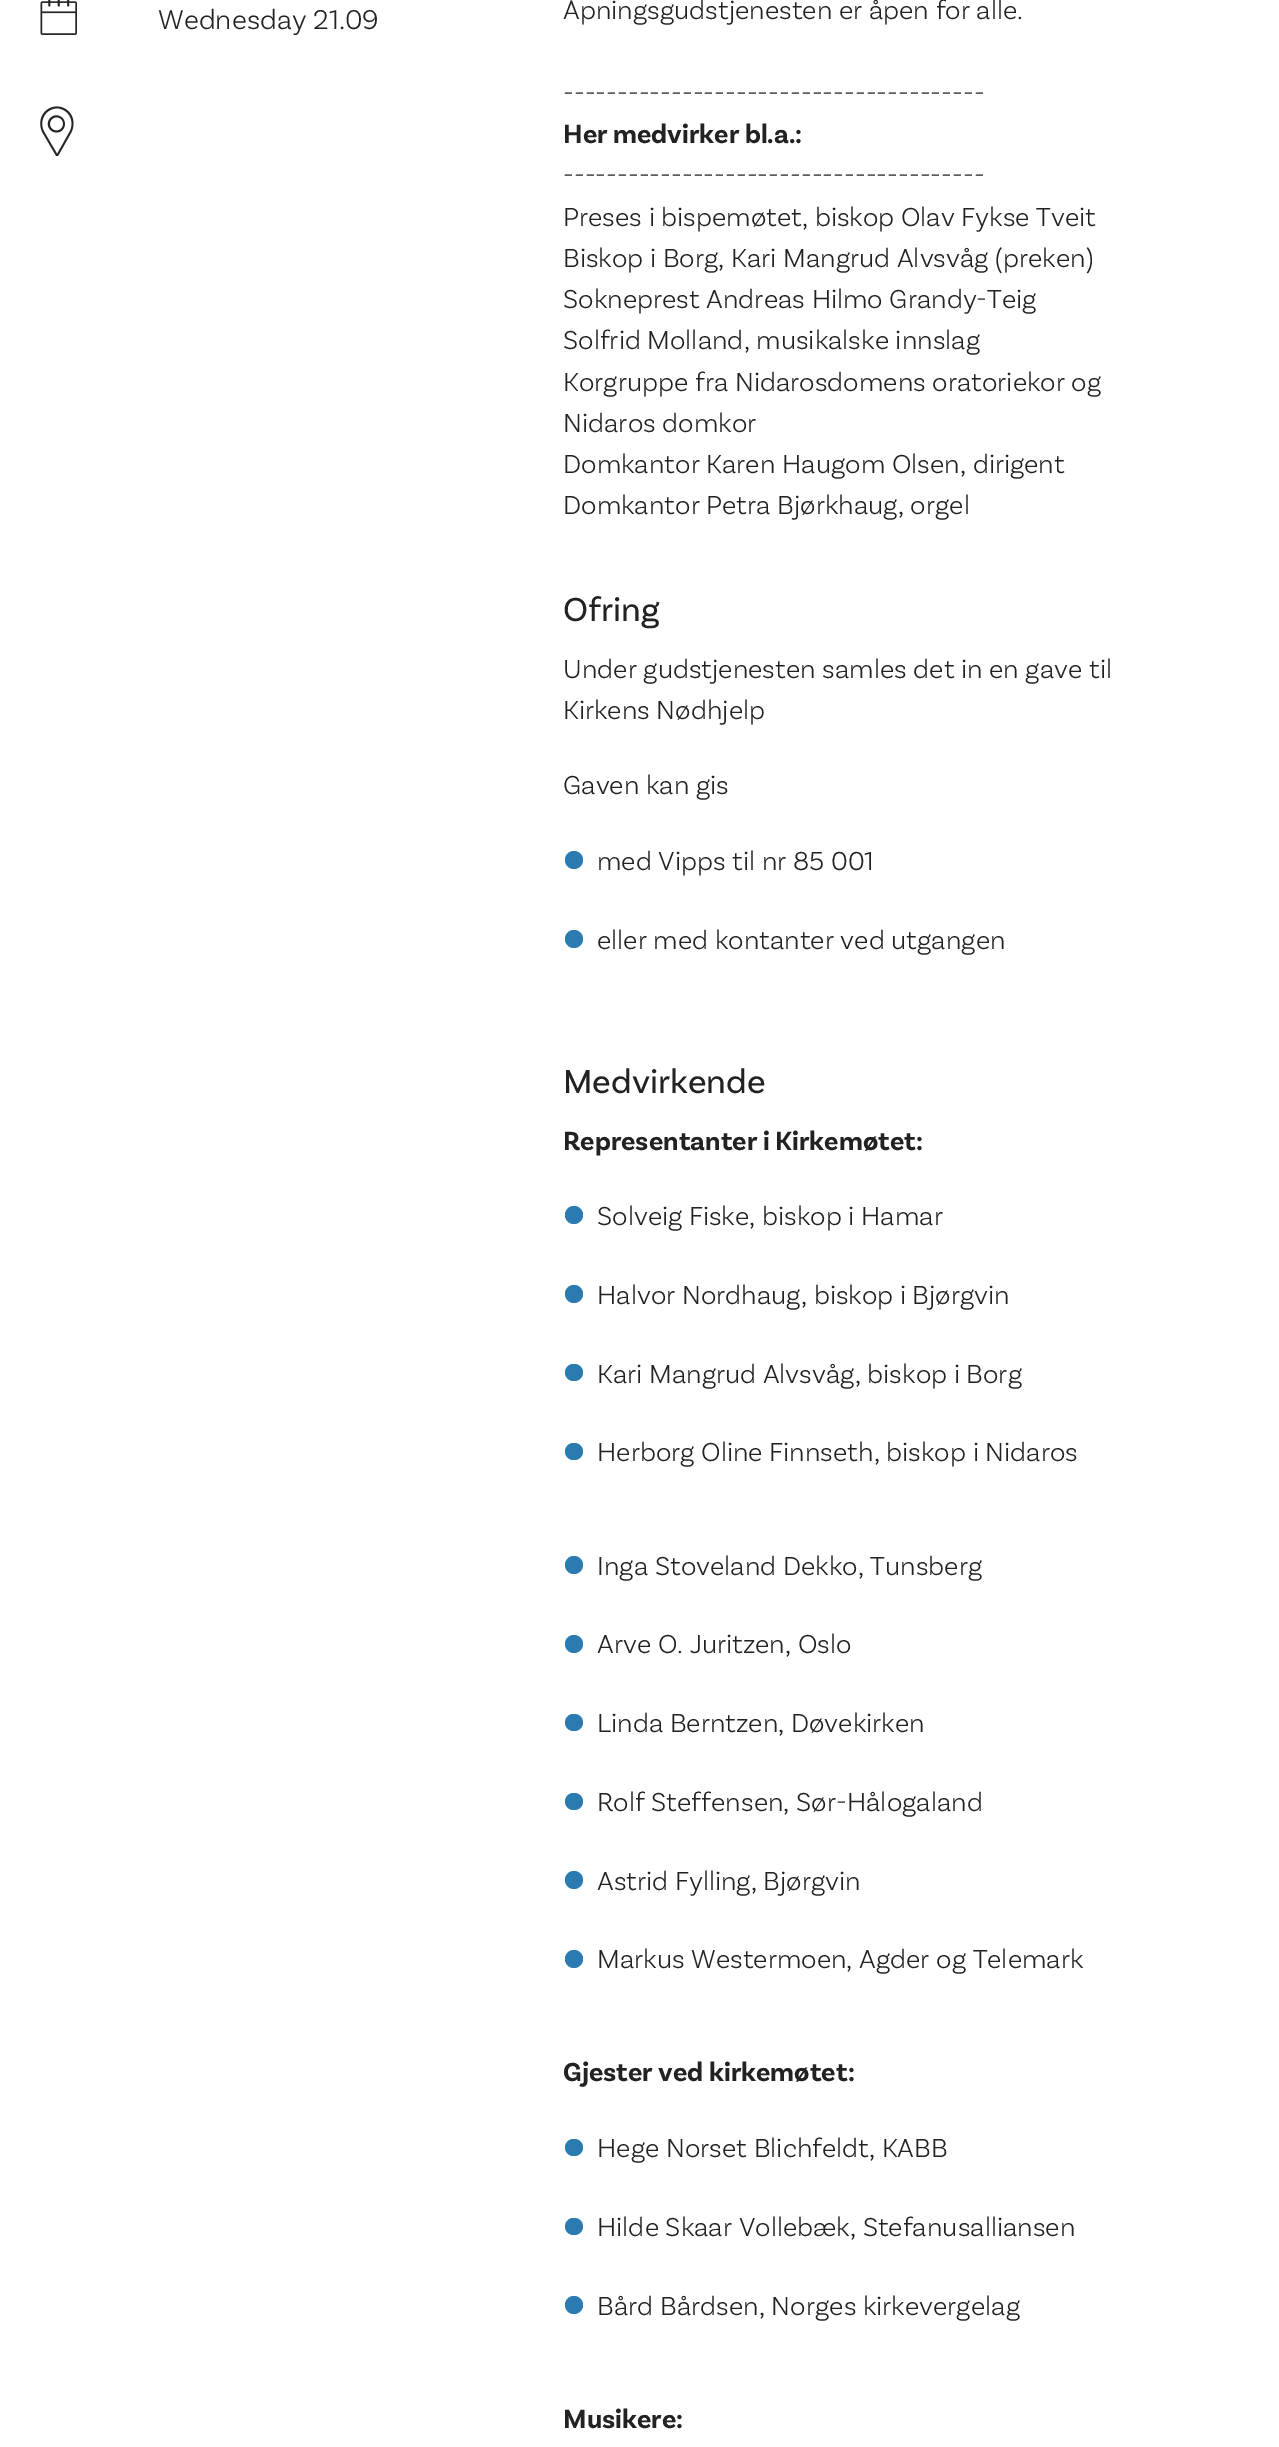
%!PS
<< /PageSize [1279 2447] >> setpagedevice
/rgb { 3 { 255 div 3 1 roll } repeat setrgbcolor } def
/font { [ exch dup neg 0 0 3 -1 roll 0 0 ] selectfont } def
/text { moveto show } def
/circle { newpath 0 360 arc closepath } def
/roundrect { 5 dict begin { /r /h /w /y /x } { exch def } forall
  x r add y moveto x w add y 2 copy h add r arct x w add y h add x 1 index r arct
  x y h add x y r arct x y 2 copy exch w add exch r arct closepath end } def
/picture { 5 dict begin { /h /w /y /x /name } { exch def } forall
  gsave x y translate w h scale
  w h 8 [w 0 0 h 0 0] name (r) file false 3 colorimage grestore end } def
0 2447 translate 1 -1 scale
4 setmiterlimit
255 255 255 rgb
0 0 1279 2447 rectfill
(img_01.rgb) 40 0 37 35 picture
(img_02.rgb) 40 106 34 50 picture
43 123 177 rgb
574 860 9 circle fill
574 939 9 circle fill
574 1215 9 circle fill
574 1294 9 circle fill
565 1364 18 17 8.5 roundrect fill
565 1443 18 17 8.5 roundrect fill
574 1565 9 circle fill
574 1644 9 circle fill
565 1714 18 17 8.5 roundrect fill
565 1793 18 17 8.5 roundrect fill
574 1880 9 circle fill
574 1959 9 circle fill
565 2139 18 17 8.5 roundrect fill
565 2218 18 17 8.5 roundrect fill
574 2305 9 circle fill
/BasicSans-Light 28.75 font
34 34 34 rgb
(Wednesday 21.09) 158 29 text
/BasicSans-Light 27.5 font
(Åpningsgudstjenesten er åpen for alle.) 563 19 text
(---------------------------------------) 563 102 text
/BasicSans-Bold 27.5 font
(Her medvirker bl.a.:) 563 143 text
/BasicSans-Light 27.5 font
(---------------------------------------) 563 184 text
(Preses i bispemøtet, biskop Olav Fykse Tveit) 563 226 text
(Biskop i Borg, Kari Mangrud Alvsvåg \(preken\)) 563 267 text
(Sokneprest Andreas Hilmo Grandy-Teig) 563 308 text
(Solfrid Molland, musikalske innslag) 563 349 text
(Korgruppe fra Nidarosdomens oratoriekor og) 563 391 text
(Nidaros domkor) 563 432 text
(Domkantor Karen Haugom Olsen, dirigent) 563 473 text
(Domkantor Petra Bjørkhaug, orgel) 563 514 text
/BasicSans-Regular 35 font
(Ofring) 563 621 text
/BasicSans-Light 27.5 font
(Under gudstjenesten samles det in en gave til) 563 678 text
(Kirkens Nødhjelp) 563 719 text
(Gaven kan gis) 563 794 text
(med Vipps til nr 85 001) 597 870 text
(eller med kontanter ved utgangen) 597 949 text
/BasicSans-Regular 35 font
(Medvirkende) 563 1093 text
/BasicSans-Bold 27.5 font
(Representanter i Kirkemøtet:) 563 1150 text
/BasicSans-Light 27.5 font
(Solveig Fiske, biskop i Hamar) 597 1225 text
(Halvor Nordhaug, biskop i Bjørgvin) 597 1304 text
(Kari Mangrud Alvsvåg, biskop i Borg) 597 1383 text
(Herborg Oline Finnseth, biskop i Nidaros) 597 1461 text
(Inga Stoveland Dekko, Tunsberg) 597 1575 text
(Arve O. Juritzen, Oslo) 597 1653 text
(Linda Berntzen, Døvekirken) 597 1732 text
(Rolf Steffensen, Sør-Hålogaland) 597 1811 text
(Astrid Fylling, Bjørgvin) 597 1890 text
(Markus Westermoen, Agder og Telemark) 597 1968 text
/BasicSans-Bold 27.5 font
(Gjester ved kirkemøtet:) 563 2081 text
/BasicSans-Light 27.5 font
(Hege Norset Blichfeldt, KABB) 597 2157 text
(Hilde Skaar Vollebæk, Stefanusalliansen) 597 2236 text
(Bård Bårdsen, Norges kirkevergelag) 597 2315 text
/BasicSans-Bold 27.5 font
(Musikere:) 563 2428 text
showpage
